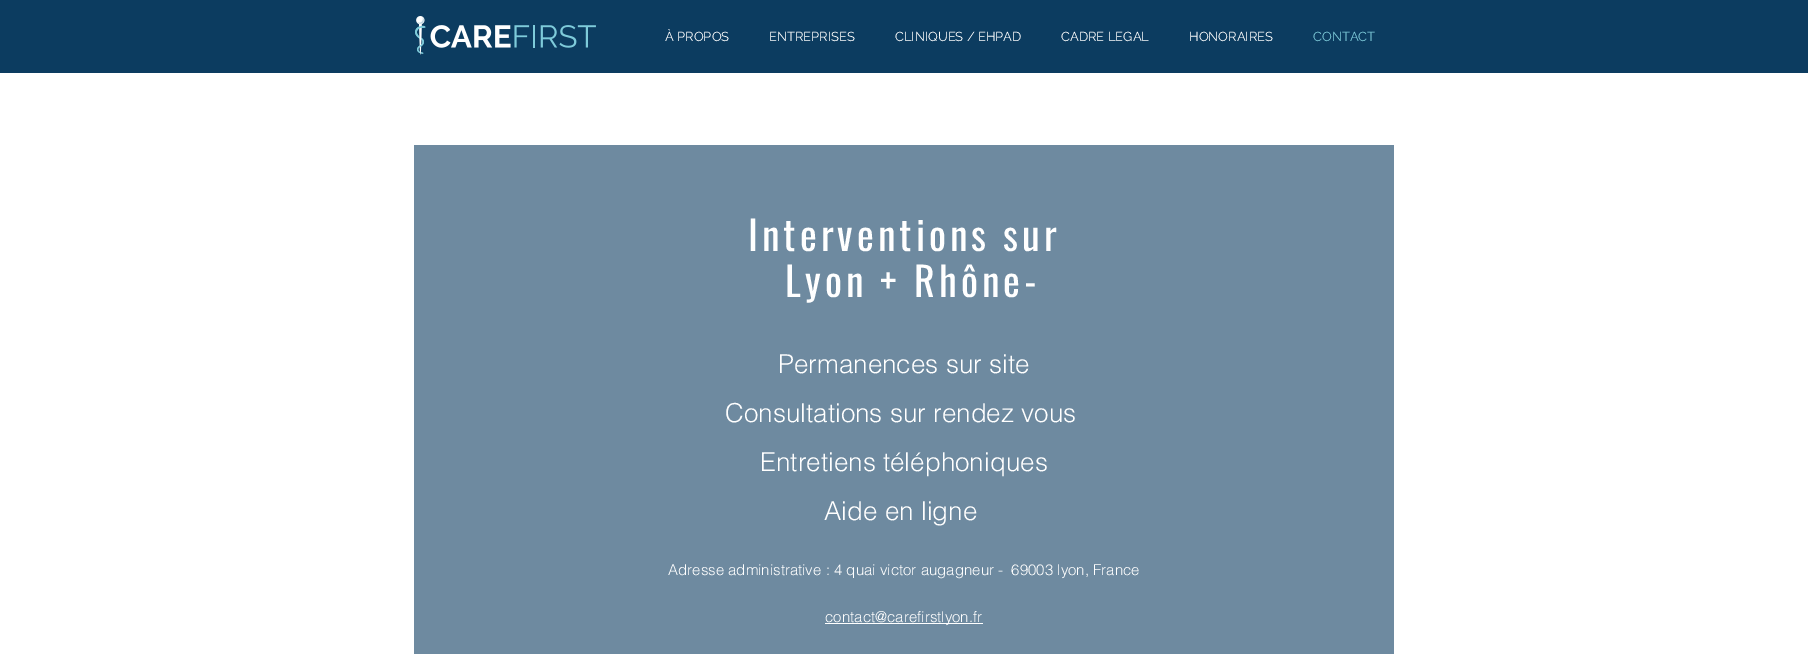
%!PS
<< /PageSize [1808 654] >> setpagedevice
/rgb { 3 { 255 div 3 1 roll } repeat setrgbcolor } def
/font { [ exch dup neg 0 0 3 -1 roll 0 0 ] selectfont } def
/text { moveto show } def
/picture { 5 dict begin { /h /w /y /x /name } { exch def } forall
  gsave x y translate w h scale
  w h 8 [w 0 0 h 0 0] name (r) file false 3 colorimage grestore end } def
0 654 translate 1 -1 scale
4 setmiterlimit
255 255 255 rgb
0 0 1808 654 rectfill
12 60 96 rgb
0 0 1808 73 rectfill
(img_01.rgb) 415 16 181 39 picture
110 138 160 rgb
414 145 980 509 rectfill
255 255 255 rgb
825 623 158 1 rectfill
/Raleway-Regular 13 font
(À PROPOS) 665 41 text
(ENTREPRISES) 769 41 text
(CLINIQUES / EHPAD) 895 41 text
(CADRE LEGAL) 1061 41 text
(HONORAIRES) 1189 41 text
126 203 218 rgb
(CONTACT) 1313 41 text
/Oswald-Regular 40 font
255 255 255 rgb
748 251 moveto 4 0 (Interventions sur) ashow
785 297 moveto 4 0 (Lyon + Rhône-) ashow
/helvetica-Light 26 font
(Permanences sur site) 778 373 text
(Consultations sur rendez vous) 725 422 text
(Entretiens téléphoniques) 760 471 text
(Aide en ligne) 824 520 text
/helvetica-Light 15 font
(Adresse administrative : 4 quai victor augagneur -  69003 lyon, France) 668 575 text
(contact@carefirstlyon.fr) 825 622 text
showpage
